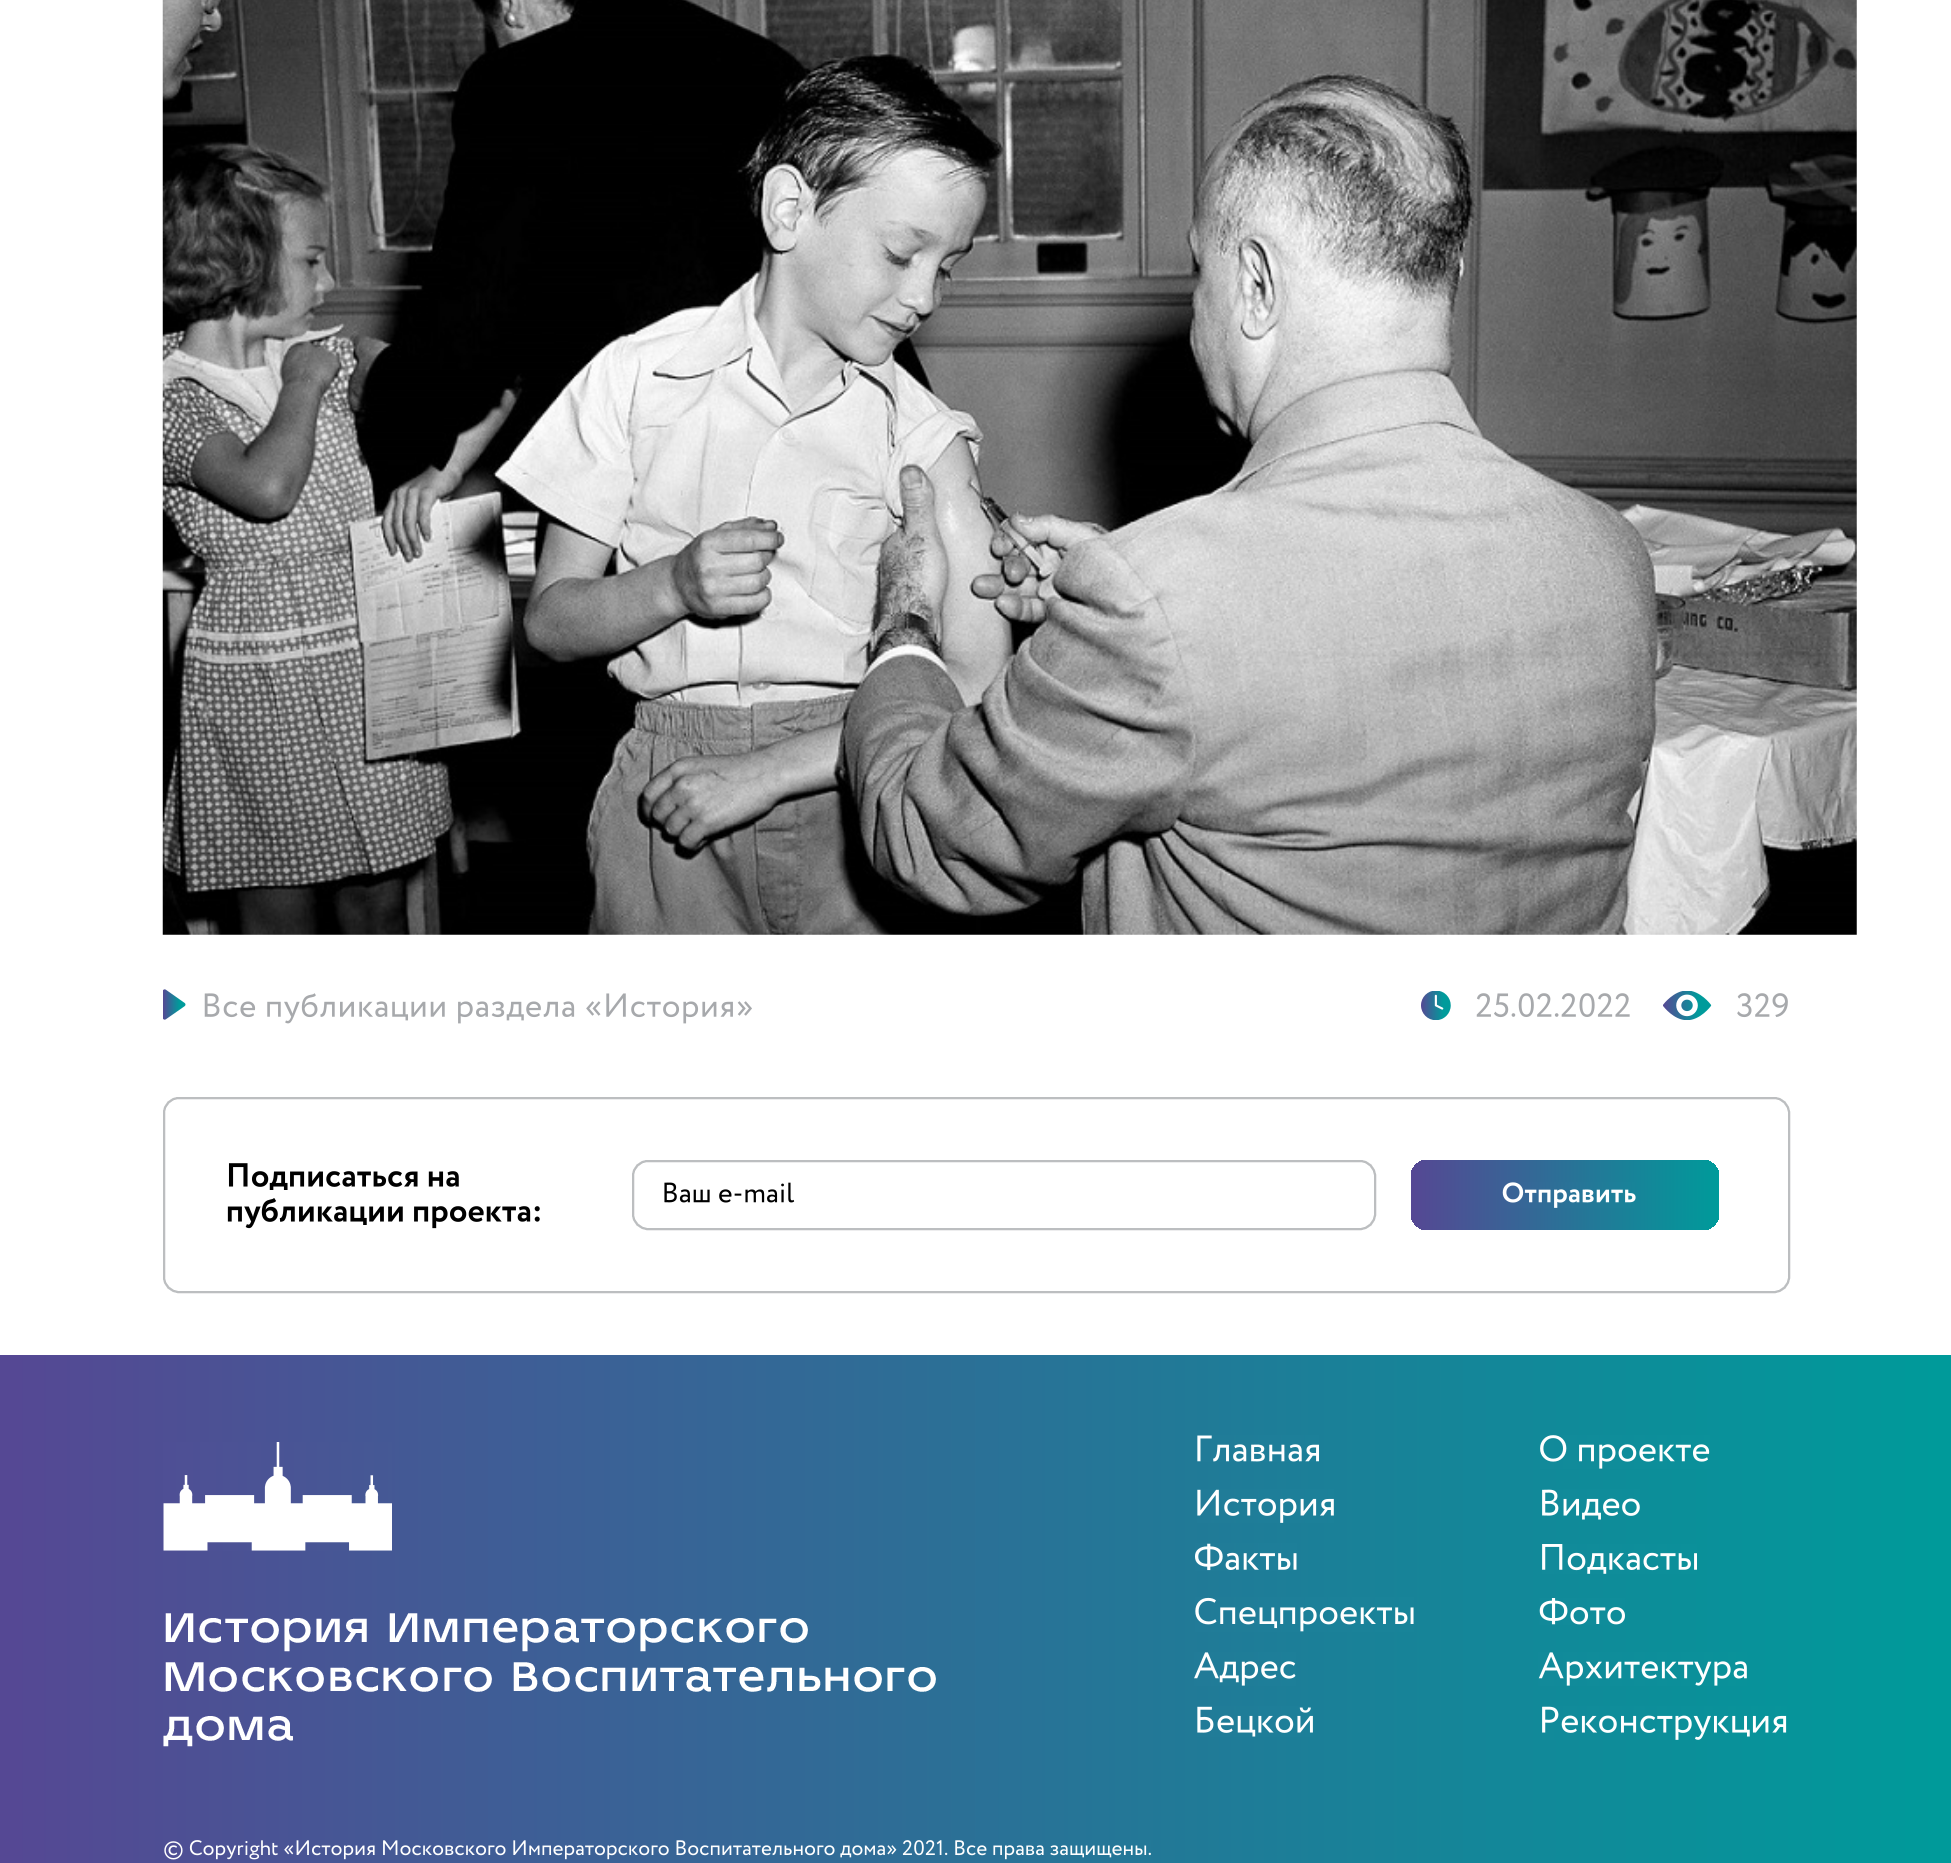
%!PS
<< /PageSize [1951 1863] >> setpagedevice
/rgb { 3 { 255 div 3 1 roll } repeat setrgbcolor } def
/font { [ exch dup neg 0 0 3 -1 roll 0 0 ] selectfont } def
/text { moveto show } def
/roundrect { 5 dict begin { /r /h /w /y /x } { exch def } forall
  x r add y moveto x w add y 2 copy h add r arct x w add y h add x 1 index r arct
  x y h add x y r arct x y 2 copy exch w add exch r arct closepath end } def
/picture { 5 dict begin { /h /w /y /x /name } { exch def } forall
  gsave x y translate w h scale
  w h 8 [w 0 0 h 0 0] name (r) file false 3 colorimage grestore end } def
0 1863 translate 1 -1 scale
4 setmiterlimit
255 255 255 rgb
0 0 1951 1863 rectfill
(img_01.rgb) 162 0 1695 935 picture
(img_02.rgb) 163 989 23 31 picture
(img_03.rgb) 204 993 548 31 picture
(img_04.rgb) 1421 991 30 29 picture
(img_05.rgb) 1476 993 154 25 picture
(img_06.rgb) 1663 991 49 29 picture
(img_07.rgb) 1737 993 51 25 picture
188 190 192 rgb
2 setlinewidth
164 1098 1625 194 15 roundrect stroke
(img_08.rgb) 228 1163 231 27 picture
(img_09.rgb) 227 1198 313 31 picture
633 1161 742 68 15 roundrect stroke
(img_10.rgb) 664 1182 131 21 picture
gsave 1411 1160 308 70 16 roundrect clip newpath
<< /ShadingType 2 /ColorSpace /DeviceRGB /Coords [1411 1195 1719 1195] /Extend [true true] /Function << /FunctionType 2 /Domain [0 1] /C0 [0.337 0.282 0.58] /C1 [0 0.608 0.608] /N 1 >> >> shfill grestore
(img_11.rgb) 1502 1182 134 26 picture
gsave 0 1355 moveto 1951 0 rlineto 0 508 rlineto -1951 0 rlineto closepath clip newpath
<< /ShadingType 2 /ColorSpace /DeviceRGB /Coords [0 1635 1951 1635] /Extend [true true] /Function << /FunctionType 2 /Domain [0 1] /C0 [0.337 0.282 0.58] /C1 [0 0.608 0.608] /N 1 >> >> shfill grestore
(img_12.rgb) 163 1442 229 109 picture
(img_13.rgb) 1197 1435 122 27 picture
(img_14.rgb) 1197 1489 137 34 picture
(img_15.rgb) 1195 1543 102 28 picture
(img_16.rgb) 1195 1597 219 35 picture
(img_17.rgb) 1194 1652 102 34 picture
(img_18.rgb) 1197 1706 116 31 picture
(img_19.rgb) 1540 1435 170 34 picture
(img_20.rgb) 1542 1489 98 31 picture
(img_21.rgb) 1542 1544 155 30 picture
(img_22.rgb) 1539 1598 86 27 picture
(img_23.rgb) 1538 1652 209 34 picture
(img_24.rgb) 1542 1706 245 34 picture
(img_25.rgb) 164 1840 987 20 picture
/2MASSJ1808-Regular 38.5 font
255 255 255 rgb
(История Императорского) 162 1642 text
(Московского Воспитательного) 162 1691 text
(дома) 162 1740 text
showpage
